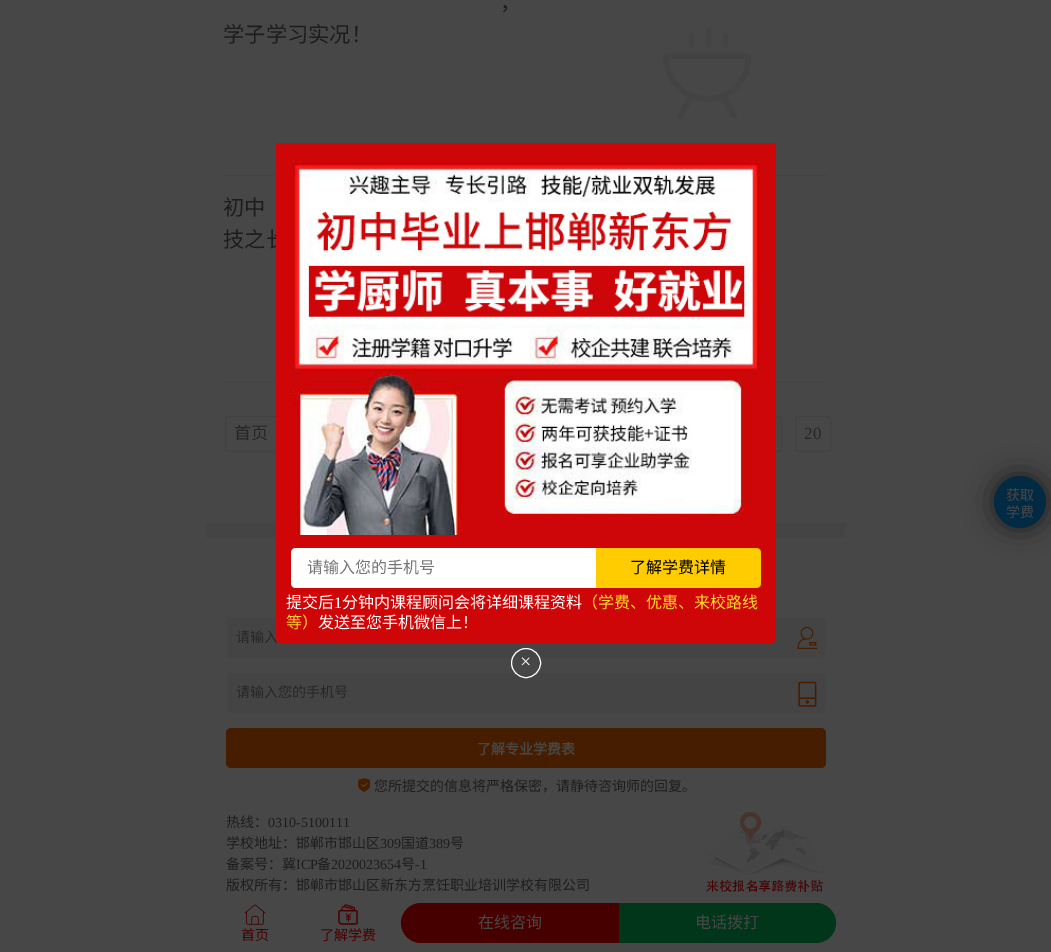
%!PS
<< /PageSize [1051 952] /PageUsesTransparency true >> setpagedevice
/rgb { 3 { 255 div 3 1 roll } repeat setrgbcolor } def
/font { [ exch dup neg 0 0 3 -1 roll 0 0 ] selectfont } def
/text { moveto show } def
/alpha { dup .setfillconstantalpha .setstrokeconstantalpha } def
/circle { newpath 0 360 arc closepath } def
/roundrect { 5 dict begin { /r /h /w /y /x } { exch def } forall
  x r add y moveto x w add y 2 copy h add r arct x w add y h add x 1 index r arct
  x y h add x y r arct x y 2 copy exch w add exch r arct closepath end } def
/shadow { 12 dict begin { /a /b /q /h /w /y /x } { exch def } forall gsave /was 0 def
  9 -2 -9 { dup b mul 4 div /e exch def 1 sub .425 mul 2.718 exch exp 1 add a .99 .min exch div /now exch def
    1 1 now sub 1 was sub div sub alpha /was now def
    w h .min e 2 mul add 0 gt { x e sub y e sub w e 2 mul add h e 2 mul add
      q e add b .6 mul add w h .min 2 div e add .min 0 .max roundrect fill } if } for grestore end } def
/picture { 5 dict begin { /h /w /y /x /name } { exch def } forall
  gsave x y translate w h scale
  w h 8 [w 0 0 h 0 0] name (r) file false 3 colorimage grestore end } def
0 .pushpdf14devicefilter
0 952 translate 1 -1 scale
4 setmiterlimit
71 71 71 rgb
0 0 1051 952 rectfill
67 67 67 rgb
223 175 605 1 rectfill
(img_01.rgb) 663 28 89 91 picture
223 381 605 1 rectfill
65 65 65 rgb
225.5 416.5 52 35 3.5 roundrect stroke
746.5 416.5 35 35 3.5 roundrect stroke
795.5 416.5 35 35 3.5 roundrect stroke
32 32 32 rgb
993 475 54 54 27 14 1 shadow
3 42 67 rgb
1020 502 26 circle fill
68 68 68 rgb
226 618 600 40 5 roundrect fill
226 673 600 40 5 roundrect fill
255 255 255 rgb
526 663 14.5 circle stroke
68 68 68 rgb
206 523 640 15 rectfill
(img_03.rgb) 797 626 21 23 picture
(img_04.rgb) 798 681 19 26 picture
71 29 0 rgb
226 728 600 40 5 roundrect fill
(img_05.rgb) 358 778 12 14 picture
(img_06.rgb) 704 812 121 80 picture
71 0 0 rgb
421 903 moveto 198 0 rlineto 0 40 rlineto -198 0 rlineto -11 0 -20 -9 -20 -20 rcurveto 0 -11 9 -20 20 -20 rcurveto closepath fill
2 54 27 rgb
619 903 moveto 197 0 rlineto 11 0 20 9 20 20 rcurveto 0 11 -9 20 -20 20 rcurveto -197 0 rlineto closepath fill
(img_07.rgb) 244 904 22 21 picture
(img_08.rgb) 338 904 20 21 picture
/NotoSansCJKSC-Regular 21.25 font
29 29 29 rgb
(，) 500 10 text
(学子学习实况！) 223 42 text
(初中) 223 215 text
(技之长) 223 247 text
/NotoSansCJKSC-Regular 17 font
38 38 38 rgb
(首页) 234 439 text
/LiberationSerif-Regular 17 font
(20) 804 439 text
/NotoSansCJKSC-Regular 14 font
71 71 71 rgb
(获取) 1006 500 text
(学费) 1006 517 text
/LiberationSerif-Regular 20 font
255 255 255 rgb
(×) 520 668 text
/NotoSansCJKSC-Regular 14 font
38 38 38 rgb
(请输入) 236 642 text
206 6 7 rgb
276 143 moveto 500 0 rlineto 0 495 rlineto 0 3 -2 5 -5 5 rcurveto -490 0 rlineto -3 0 -5 -2 -5 -5 rcurveto closepath fill
254 204 0 rgb
596 548 moveto 160 0 rlineto 3 0 5 2 5 5 rcurveto 0 30 rlineto 0 3 -2 5 -5 5 rcurveto -160 0 rlineto closepath fill
/NotoSansCJKSC-Regular 16 font
0 0 0 rgb
(了解学费详情) 630 573 text
(img_02.rgb) 293 160 475 375 picture
255 255 255 rgb
(发送至您手机微信上！) 318 628 text
255 218 46 rgb
(等）) 286 628 text
(（学费、优惠、来校路线) 582 608 text
255 255 255 rgb
(分钟内课程顾问会将详细课程资料) 342 608 text
/LiberationSerif-Regular 16 font
(1) 334 608 text
/NotoSansCJKSC-Regular 16 font
(提交后) 286 608 text
296 548 moveto 300 0 rlineto 0 40 rlineto -300 0 rlineto -3 0 -5 -2 -5 -5 rcurveto 0 -30 rlineto 0 -3 2 -5 5 -5 rcurveto closepath fill
117 117 117 rgb
(请输入您的手机号) 307 573 text
/NotoSansCJKSC-Regular 14 font
38 38 38 rgb
(请输入您的手机号) 236 697 text
/NotoSansCJKSC-Bold 14 font
71 71 71 rgb
(了解专业学费表) 477 754 text
/NotoSansCJKSC-Regular 14 font
29 29 29 rgb
(您所提交的信息将严格保密，请静待咨询师的回复。) 374 791 text
(热线：) 226 827 text
/LiberationSerif-Regular 14 font
(0310-5100111) 268 827 text
/NotoSansCJKSC-Regular 14 font
(学校地址：邯郸市邯山区) 226 848 text
/LiberationSerif-Regular 14 font
(309) 380 848 text
/NotoSansCJKSC-Regular 14 font
(国道) 401 848 text
/LiberationSerif-Regular 14 font
(389) 429 848 text
/NotoSansCJKSC-Regular 14 font
(号) 450 848 text
(备案号：冀) 226 869 text
/LiberationSerif-Regular 14 font
(ICP) 296 869 text
/NotoSansCJKSC-Regular 14 font
(备) 317 869 text
/LiberationSerif-Regular 14 font
(2020023654) 331 869 text
/NotoSansCJKSC-Regular 14 font
(号) 401 869 text
/LiberationSerif-Regular 14 font
(-1) 415 869 text
/NotoSansCJKSC-Regular 14 font
(版权所有：邯郸市邯山区新东方烹饪职业培训学校有限公司) 226 890 text
/NotoSansCJKSC-Regular 16 font
71 71 71 rgb
(在线咨询) 478 928 text
(电话拨打) 695 928 text
/NotoSansCJKSC-Regular 14 font
71 0 0 rgb
(首页) 241 940 text
(了解学费) 320 940 text
.poppdf14devicefilter showpage
